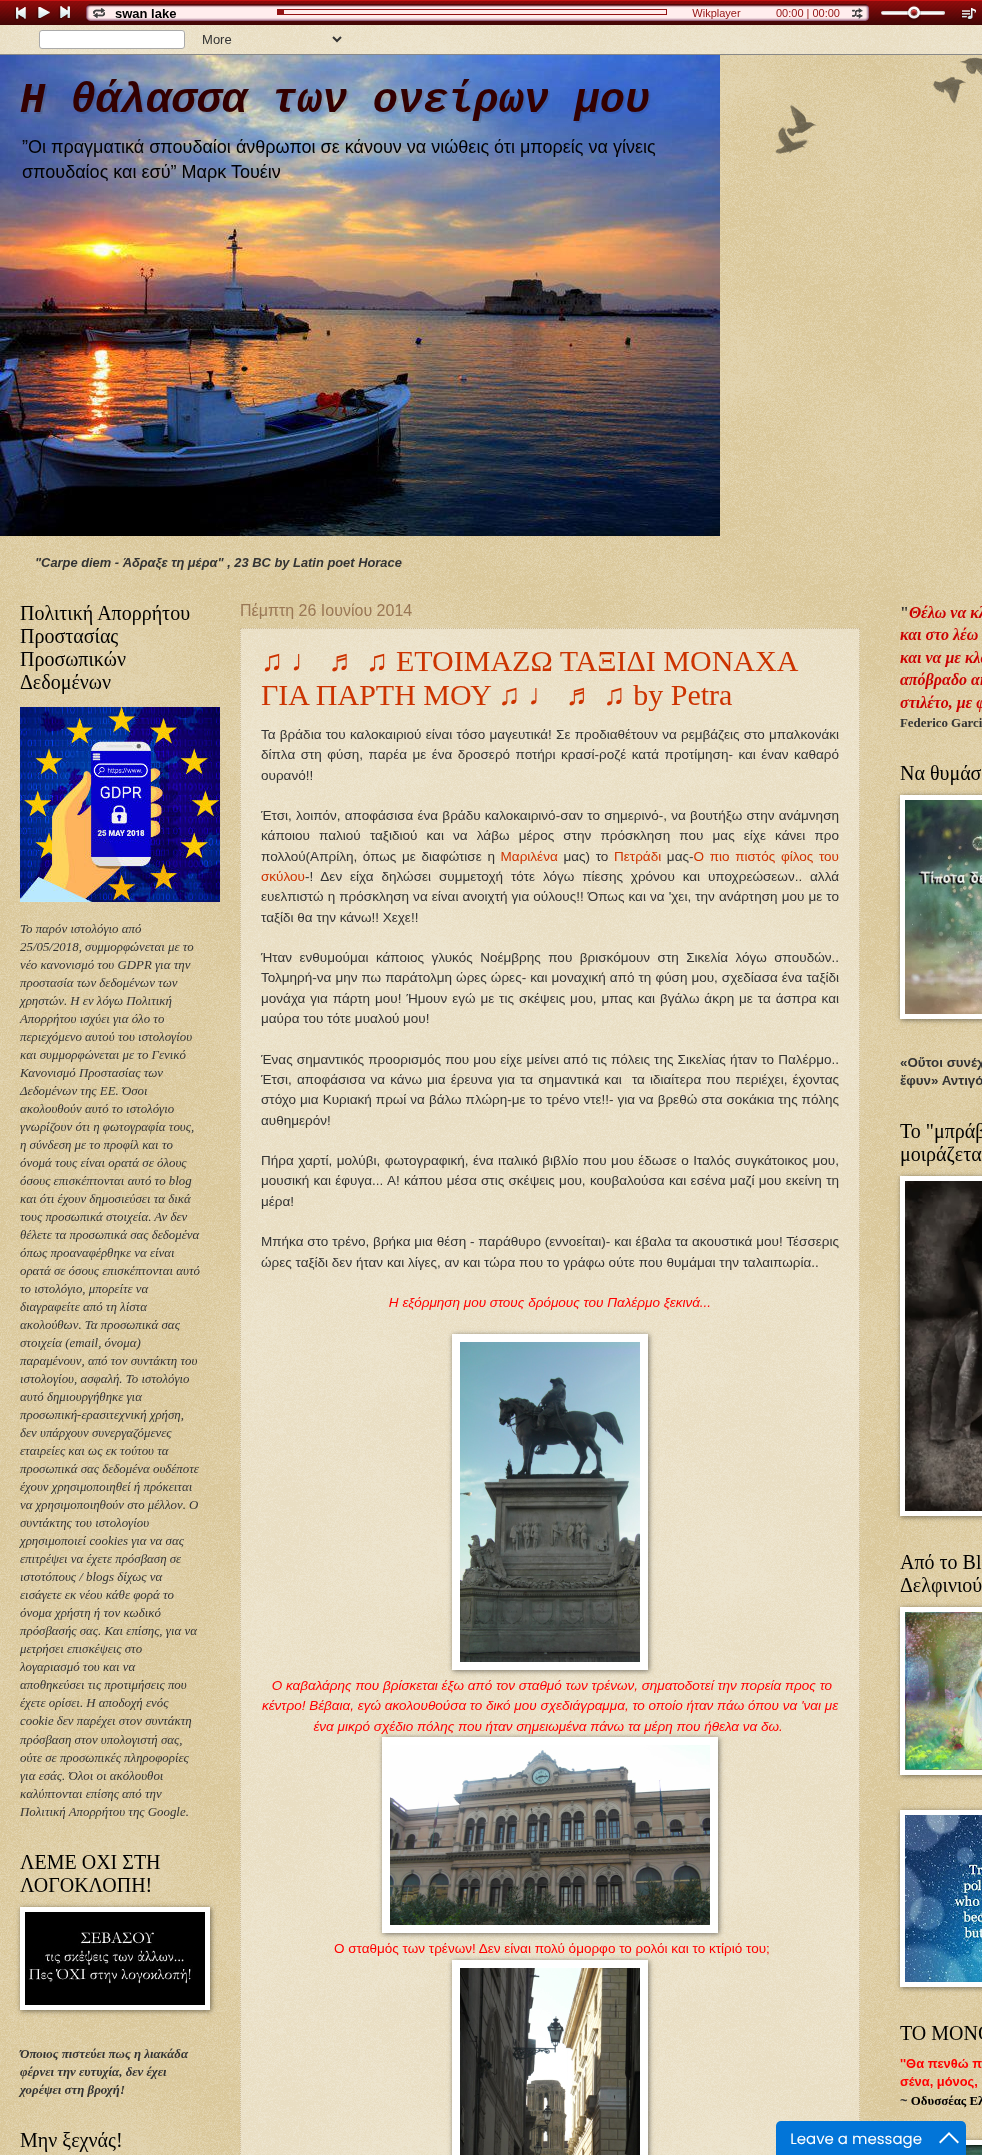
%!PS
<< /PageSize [982 2155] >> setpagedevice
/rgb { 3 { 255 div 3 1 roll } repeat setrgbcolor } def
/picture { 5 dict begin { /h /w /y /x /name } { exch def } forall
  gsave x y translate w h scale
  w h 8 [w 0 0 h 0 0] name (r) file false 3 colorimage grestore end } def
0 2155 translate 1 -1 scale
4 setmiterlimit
255 255 255 rgb
0 0 982 2155 rectfill
(img_01.rgb) 0 0 982 2155 picture
showpage
